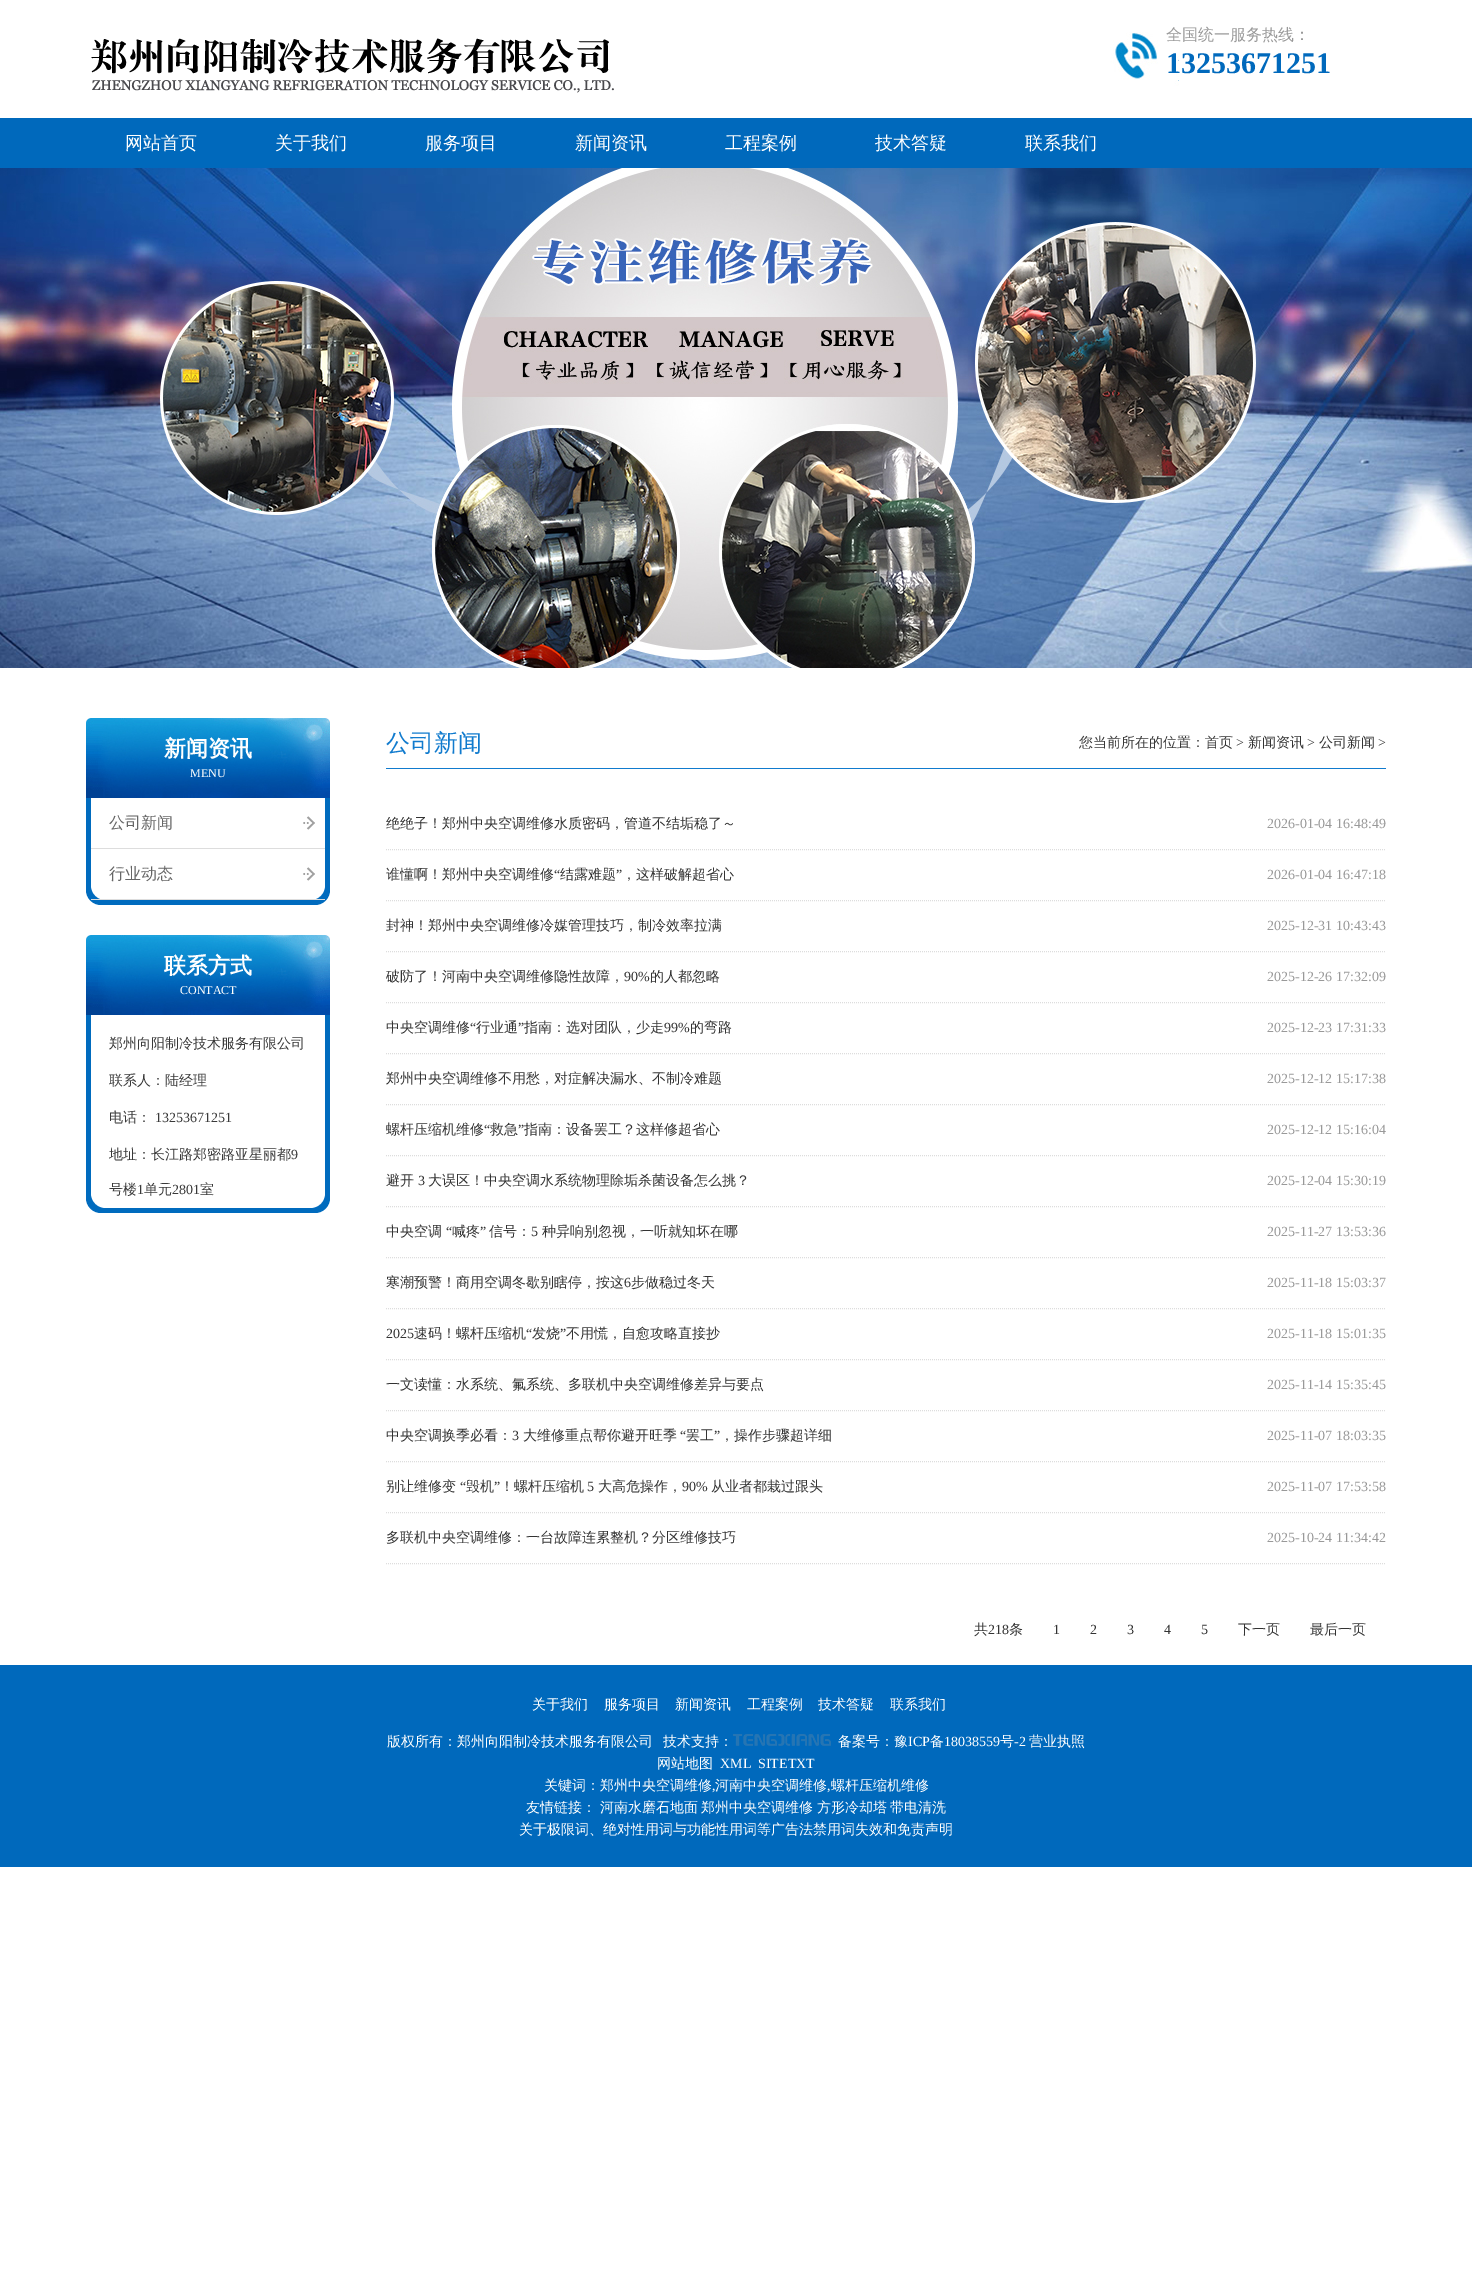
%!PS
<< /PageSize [1472 2272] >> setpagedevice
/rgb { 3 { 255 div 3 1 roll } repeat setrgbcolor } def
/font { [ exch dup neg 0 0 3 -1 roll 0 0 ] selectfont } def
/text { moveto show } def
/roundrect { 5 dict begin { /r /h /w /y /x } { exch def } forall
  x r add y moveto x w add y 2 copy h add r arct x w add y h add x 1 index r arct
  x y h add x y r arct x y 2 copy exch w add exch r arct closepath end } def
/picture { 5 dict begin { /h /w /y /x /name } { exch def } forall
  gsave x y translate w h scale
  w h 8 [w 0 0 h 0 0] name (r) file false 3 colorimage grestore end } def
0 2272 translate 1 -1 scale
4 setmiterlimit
255 255 255 rgb
0 0 1472 2272 rectfill
(img_01.rgb) 91 38 523 55 picture
(img_02.rgb) 1110 32 69 54 picture
0 105 188 rgb
0 118 1472 50 rectfill
(img_03.rgb) 0 168 1472 500 picture
0 107 190 rgb
86 718 244 187 15 roundrect fill
(img_04.rgb) 86 718 244 80 picture
255 255 255 rgb
91 798 moveto 234 0 rlineto 0 87 rlineto 0 8.5 -6.5 15 -15 15 rcurveto -204 0 rlineto -8.5 0 -15 -6.5 -15 -15 rcurveto closepath fill
221 221 221 rgb
91 848 234 1 rectfill
(img_05.rgb) 303 816 12 14 picture
91 899 234 1 rectfill
(img_05.rgb) 303 867 12 14 picture
0 107 190 rgb
86 935 244 278 15 roundrect fill
(img_04.rgb) 86 935 244 80 picture
255 255 255 rgb
91 1015 moveto 234 0 rlineto 0 178 rlineto 0 8.5 -6.5 15 -15 15 rcurveto -204 0 rlineto -8.5 0 -15 -6.5 -15 -15 rcurveto closepath fill
17 123 206 rgb
386 768 1000 1 rectfill
221 221 221 rgb
[1 1] 0 setdash
386 849.5 moveto 1000 0 rlineto stroke
386 900.5 moveto 1000 0 rlineto stroke
386 951.5 moveto 1000 0 rlineto stroke
386 1002.5 moveto 1000 0 rlineto stroke
386 1053.5 moveto 1000 0 rlineto stroke
386 1104.5 moveto 1000 0 rlineto stroke
386 1155.5 moveto 1000 0 rlineto stroke
386 1206.5 moveto 1000 0 rlineto stroke
386 1257.5 moveto 1000 0 rlineto stroke
386 1308.5 moveto 1000 0 rlineto stroke
386 1359.5 moveto 1000 0 rlineto stroke
386 1410.5 moveto 1000 0 rlineto stroke
386 1461.5 moveto 1000 0 rlineto stroke
386 1512.5 moveto 1000 0 rlineto stroke
386 1563.5 moveto 1000 0 rlineto stroke
0 105 188 rgb
0 1665 1472 202 rectfill
(img_06.rgb) 733 1734 98 12 picture
/WenQuanYiZenHei-Medium 16 font
153 153 153 rgb
(全国统一服务热线：) 1166 40 text
/LiberationSerif-Bold 30 font
0 105 188 rgb
(13253671251) 1166 73 text
/WenQuanYiZenHei-Medium 18 font
255 255 255 rgb
(网站首页) 125 149 text
(关于我们) 275 149 text
(服务项目) 425 149 text
(新闻资讯) 575 149 text
(工程案例) 725 149 text
(技术答疑) 875 149 text
(联系我们) 1025 149 text
/WenQuanYiZenHei-Bold 22 font
(新闻资讯) 164 756 text
/LiberationSerif-Regular 12 font
(MENU) 190 777 text
/WenQuanYiZenHei-Medium 16 font
102 102 102 rgb
(公司新闻) 109 828 text
(行业动态) 109 879 text
/WenQuanYiZenHei-Bold 22 font
255 255 255 rgb
(联系方式) 164 973 text
/LiberationSerif-Regular 12 font
(CONTACT) 180 994 text
/WenQuanYiZenHei-Medium 14 font
57 57 57 rgb
(郑州向阳制冷技术服务有限公司) 109 1048 text
(联系人：陆经理) 109 1085 text
(电话：) 109 1122 text
/LiberationSerif-Regular 14 font
(13253671251) 155 1122 text
/WenQuanYiZenHei-Medium 14 font
(地址：长江路郑密路亚星丽都) 109 1159 text
/LiberationSerif-Regular 14 font
(9) 291 1159 text
/WenQuanYiZenHei-Medium 14 font
(号楼) 109 1194 text
/LiberationSerif-Regular 14 font
(1) 137 1194 text
/WenQuanYiZenHei-Medium 14 font
(单元) 144 1194 text
/LiberationSerif-Regular 14 font
(2801) 172 1194 text
/WenQuanYiZenHei-Medium 14 font
(室) 200 1194 text
/WenQuanYiZenHei-Medium 24 font
17 123 206 rgb
(公司新闻) 386 751 text
/WenQuanYiZenHei-Medium 14 font
57 57 57 rgb
(您当前所在的位置：) 1079 747 text
51 51 51 rgb
(首页) 1205 747 text
/LiberationSerif-Regular 14 font
57 57 57 rgb
(>) 1236 747 text
/WenQuanYiZenHei-Medium 14 font
51 51 51 rgb
(新闻资讯) 1248 747 text
/LiberationSerif-Regular 14 font
57 57 57 rgb
(>) 1307 747 text
/WenQuanYiZenHei-Medium 14 font
51 51 51 rgb
(公司新闻) 1319 747 text
/LiberationSerif-Regular 14 font
57 57 57 rgb
(>) 1378 747 text
/WenQuanYiZenHei-Medium 14 font
51 51 51 rgb
(绝绝子！郑州中央空调维修水质密码，管道不结垢稳了～) 386 828 text
/LiberationSerif-Regular 14 font
153 153 153 rgb
(2026-01-04 16:48:49) 1267 828 text
/WenQuanYiZenHei-Medium 14 font
51 51 51 rgb
(谁懂啊！郑州中央空调维修) 386 879 text
/LiberationSerif-Regular 14 font
(“) 554 879 text
/WenQuanYiZenHei-Medium 14 font
(结露难题) 560 879 text
/LiberationSerif-Regular 14 font
(”) 616 879 text
/WenQuanYiZenHei-Medium 14 font
(，这样破解超省心) 622 879 text
/LiberationSerif-Regular 14 font
153 153 153 rgb
(2026-01-04 16:47:18) 1267 879 text
/WenQuanYiZenHei-Medium 14 font
51 51 51 rgb
(封神！郑州中央空调维修冷媒管理技巧，制冷效率拉满) 386 930 text
/LiberationSerif-Regular 14 font
153 153 153 rgb
(2025-12-31 10:43:43) 1267 930 text
/WenQuanYiZenHei-Medium 14 font
51 51 51 rgb
(破防了！河南中央空调维修隐性故障，) 386 981 text
/LiberationSerif-Regular 14 font
(90%) 624 981 text
/WenQuanYiZenHei-Medium 14 font
(的人都忽略) 650 981 text
/LiberationSerif-Regular 14 font
153 153 153 rgb
(2025-12-26 17:32:09) 1267 981 text
/WenQuanYiZenHei-Medium 14 font
51 51 51 rgb
(中央空调维修) 386 1032 text
/LiberationSerif-Regular 14 font
(“) 470 1032 text
/WenQuanYiZenHei-Medium 14 font
(行业通) 476 1032 text
/LiberationSerif-Regular 14 font
(”) 518 1032 text
/WenQuanYiZenHei-Medium 14 font
(指南：选对团队，少走) 524 1032 text
/LiberationSerif-Regular 14 font
(99%) 664 1032 text
/WenQuanYiZenHei-Medium 14 font
(的弯路) 690 1032 text
/LiberationSerif-Regular 14 font
153 153 153 rgb
(2025-12-23 17:31:33) 1267 1032 text
/WenQuanYiZenHei-Medium 14 font
51 51 51 rgb
(郑州中央空调维修不用愁，对症解决漏水、不制冷难题) 386 1083 text
/LiberationSerif-Regular 14 font
153 153 153 rgb
(2025-12-12 15:17:38) 1267 1083 text
/WenQuanYiZenHei-Medium 14 font
51 51 51 rgb
(螺杆压缩机维修) 386 1134 text
/LiberationSerif-Regular 14 font
(“) 484 1134 text
/WenQuanYiZenHei-Medium 14 font
(救急) 490 1134 text
/LiberationSerif-Regular 14 font
(”) 518 1134 text
/WenQuanYiZenHei-Medium 14 font
(指南：设备罢工？这样修超省心) 524 1134 text
/LiberationSerif-Regular 14 font
153 153 153 rgb
(2025-12-12 15:16:04) 1267 1134 text
/WenQuanYiZenHei-Medium 14 font
51 51 51 rgb
(避开) 386 1185 text
/LiberationSerif-Regular 14 font
(3) 418 1185 text
/WenQuanYiZenHei-Medium 14 font
(大误区！中央空调水系统物理除垢杀菌设备怎么挑？) 428 1185 text
/LiberationSerif-Regular 14 font
153 153 153 rgb
(2025-12-04 15:30:19) 1267 1185 text
/WenQuanYiZenHei-Medium 14 font
51 51 51 rgb
(中央空调) 386 1236 text
/LiberationSerif-Regular 14 font
(“) 446 1236 text
/WenQuanYiZenHei-Medium 14 font
(喊疼) 452 1236 text
/LiberationSerif-Regular 14 font
(”) 480 1236 text
/WenQuanYiZenHei-Medium 14 font
(信号：) 489 1236 text
/LiberationSerif-Regular 14 font
(5) 531 1236 text
/WenQuanYiZenHei-Medium 14 font
(种异响别忽视，一听就知坏在哪) 542 1236 text
/LiberationSerif-Regular 14 font
153 153 153 rgb
(2025-11-27 13:53:36) 1267 1236 text
/WenQuanYiZenHei-Medium 14 font
51 51 51 rgb
(寒潮预警！商用空调冬歇别瞎停，按这) 386 1287 text
/LiberationSerif-Regular 14 font
(6) 624 1287 text
/WenQuanYiZenHei-Medium 14 font
(步做稳过冬天) 631 1287 text
/LiberationSerif-Regular 14 font
153 153 153 rgb
(2025-11-18 15:03:37) 1267 1287 text
51 51 51 rgb
(2025) 386 1338 text
/WenQuanYiZenHei-Medium 14 font
(速码！螺杆压缩机) 414 1338 text
/LiberationSerif-Regular 14 font
(“) 526 1338 text
/WenQuanYiZenHei-Medium 14 font
(发烧) 532 1338 text
/LiberationSerif-Regular 14 font
(”) 560 1338 text
/WenQuanYiZenHei-Medium 14 font
(不用慌，自愈攻略直接抄) 566 1338 text
/LiberationSerif-Regular 14 font
153 153 153 rgb
(2025-11-18 15:01:35) 1267 1338 text
/WenQuanYiZenHei-Medium 14 font
51 51 51 rgb
(一文读懂：水系统、氟系统、多联机中央空调维修差异与要点) 386 1389 text
/LiberationSerif-Regular 14 font
153 153 153 rgb
(2025-11-14 15:35:45) 1267 1389 text
/WenQuanYiZenHei-Medium 14 font
51 51 51 rgb
(中央空调换季必看：) 386 1440 text
/LiberationSerif-Regular 14 font
(3) 512 1440 text
/WenQuanYiZenHei-Medium 14 font
(大维修重点帮你避开旺季) 523 1440 text
/LiberationSerif-Regular 14 font
(“) 680 1440 text
/WenQuanYiZenHei-Medium 14 font
(罢工) 686 1440 text
/LiberationSerif-Regular 14 font
(”) 714 1440 text
/WenQuanYiZenHei-Medium 14 font
(，操作步骤超详细) 720 1440 text
/LiberationSerif-Regular 14 font
153 153 153 rgb
(2025-11-07 18:03:35) 1267 1440 text
/WenQuanYiZenHei-Medium 14 font
51 51 51 rgb
(别让维修变) 386 1491 text
/LiberationSerif-Regular 14 font
(“) 460 1491 text
/WenQuanYiZenHei-Medium 14 font
(毁机) 466 1491 text
/LiberationSerif-Regular 14 font
(”) 494 1491 text
/WenQuanYiZenHei-Medium 14 font
(！螺杆压缩机) 500 1491 text
/LiberationSerif-Regular 14 font
(5) 587 1491 text
/WenQuanYiZenHei-Medium 14 font
(大高危操作，) 598 1491 text
/LiberationSerif-Regular 14 font
(90%) 682 1491 text
/WenQuanYiZenHei-Medium 14 font
(从业者都栽过跟头) 711 1491 text
/LiberationSerif-Regular 14 font
153 153 153 rgb
(2025-11-07 17:53:58) 1267 1491 text
/WenQuanYiZenHei-Medium 14 font
51 51 51 rgb
(多联机中央空调维修：一台故障连累整机？分区维修技巧) 386 1542 text
/LiberationSerif-Regular 14 font
153 153 153 rgb
(2025-10-24 11:34:42) 1267 1542 text
/WenQuanYiZenHei-Medium 14 font
51 51 51 rgb
(共) 974 1634 text
/LiberationSerif-Regular 14 font
(218) 988 1634 text
/WenQuanYiZenHei-Medium 14 font
(条) 1009 1634 text
/LiberationSerif-Regular 14 font
(1) 1053 1634 text
(2) 1090 1634 text
(3) 1127 1634 text
(4) 1164 1634 text
(5) 1201 1634 text
/WenQuanYiZenHei-Medium 14 font
(下一页) 1238 1634 text
(最后一页) 1310 1634 text
255 255 255 rgb
(关于我们) 532 1709 text
(服务项目) 604 1709 text
(新闻资讯) 675 1709 text
(工程案例) 747 1709 text
(技术答疑) 818 1709 text
(联系我们) 890 1709 text
(版权所有：郑州向阳制冷技术服务有限公司) 387 1746 text
(技术支持：) 663 1746 text
(备案号：豫) 838 1746 text
/LiberationSerif-Regular 14 font
(ICP) 908 1746 text
/WenQuanYiZenHei-Medium 14 font
(备) 930 1746 text
/LiberationSerif-Regular 14 font
(18038559) 944 1746 text
/WenQuanYiZenHei-Medium 14 font
(号) 1000 1746 text
/LiberationSerif-Regular 14 font
(-2) 1014 1746 text
/WenQuanYiZenHei-Medium 14 font
(营业执照) 1029 1746 text
(网站地图) 657 1768 text
/LiberationSerif-Regular 14 font
(XML) 720 1768 text
(SITETXT) 758 1768 text
/WenQuanYiZenHei-Medium 14 font
(关键词：郑州中央空调维修) 544 1790 text
/LiberationSerif-Regular 14 font
(,) 712 1790 text
/WenQuanYiZenHei-Medium 14 font
(河南中央空调维修) 715 1790 text
/LiberationSerif-Regular 14 font
(,) 827 1790 text
/WenQuanYiZenHei-Medium 14 font
(螺杆压缩机维修) 831 1790 text
(友情链接：) 526 1812 text
(河南水磨石地面) 600 1812 text
(郑州中央空调维修) 701 1812 text
(方形冷却塔) 817 1812 text
(带电清洗) 890 1812 text
(关于极限词、绝对性用词与功能性用词等广告法禁用词失效和免责声明) 519 1834 text
showpage
